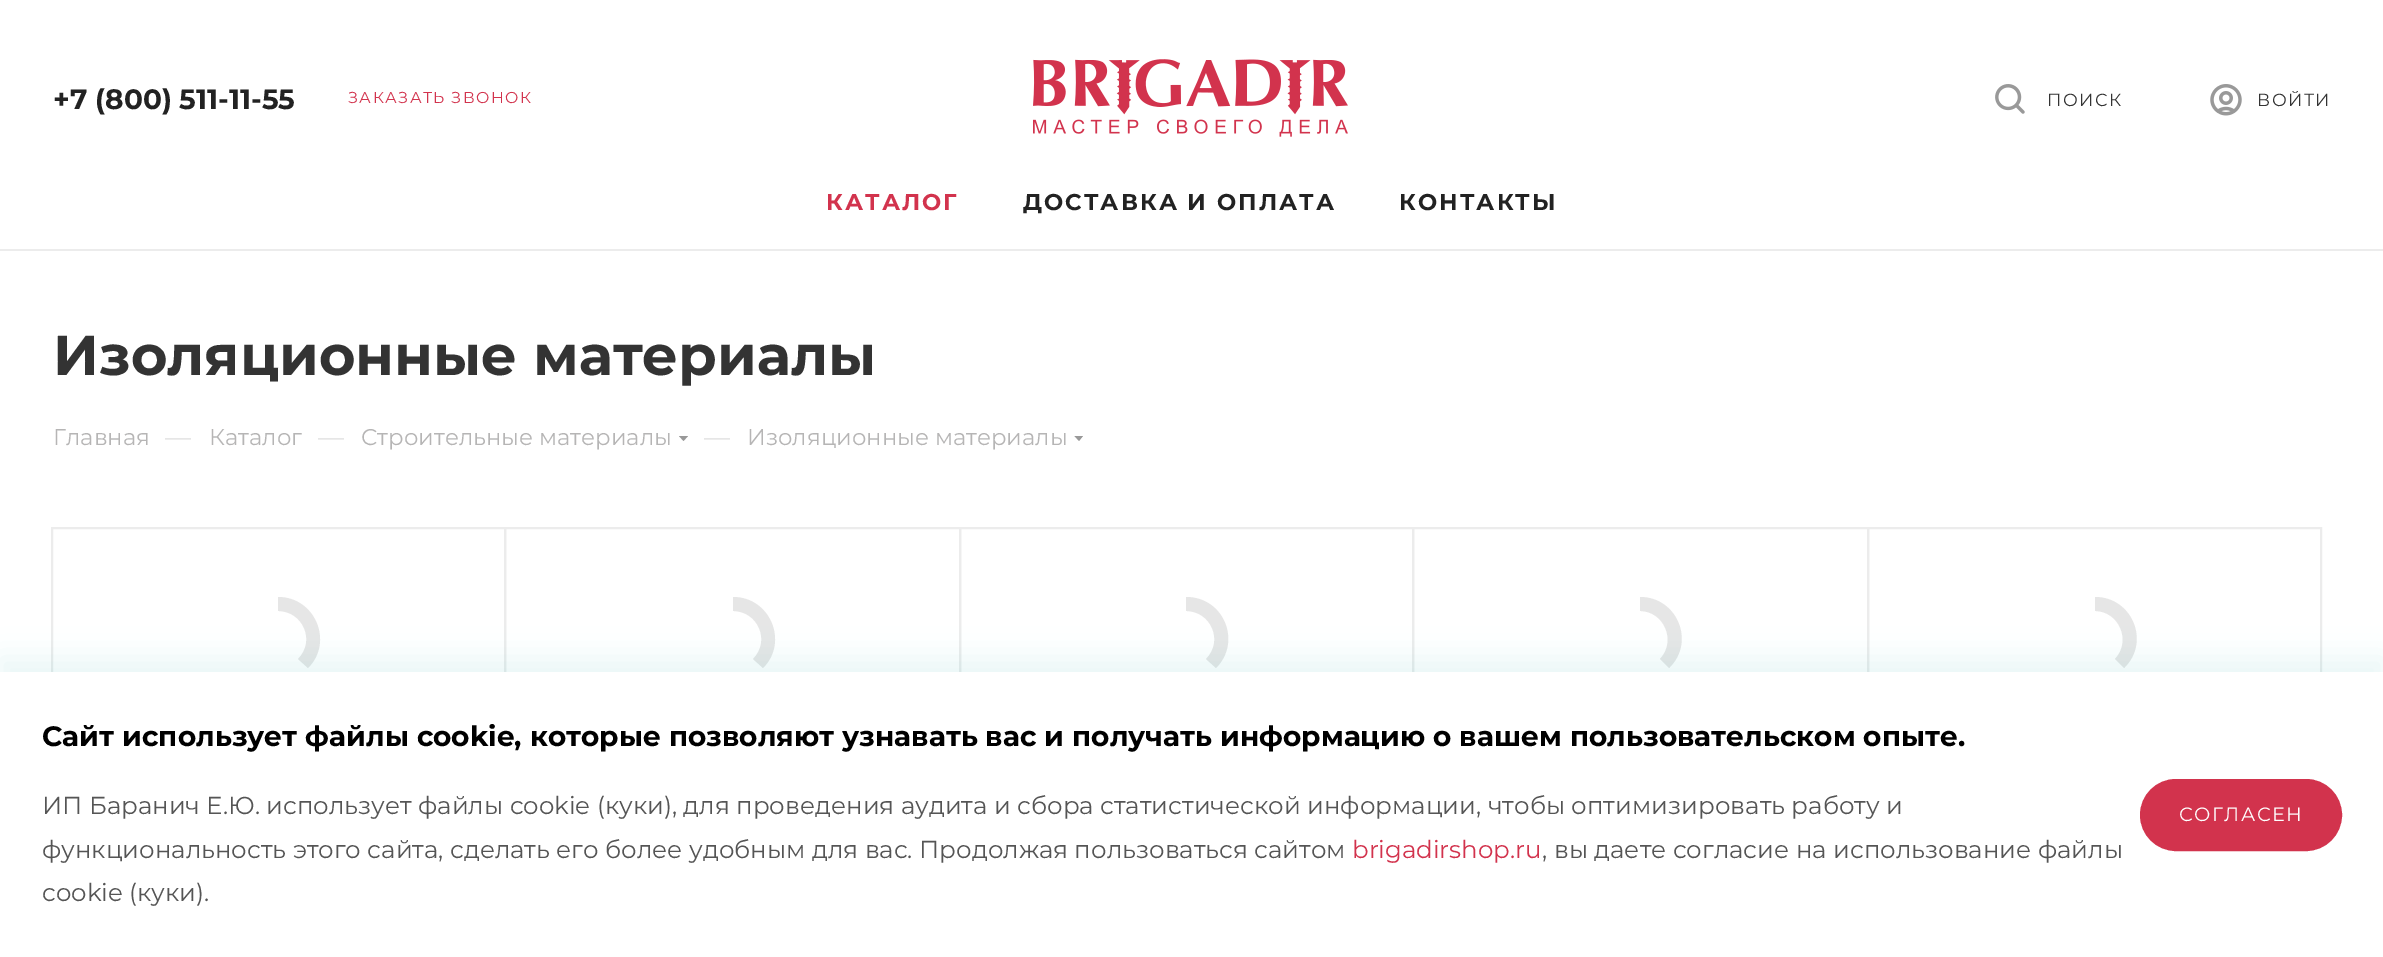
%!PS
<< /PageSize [2383 957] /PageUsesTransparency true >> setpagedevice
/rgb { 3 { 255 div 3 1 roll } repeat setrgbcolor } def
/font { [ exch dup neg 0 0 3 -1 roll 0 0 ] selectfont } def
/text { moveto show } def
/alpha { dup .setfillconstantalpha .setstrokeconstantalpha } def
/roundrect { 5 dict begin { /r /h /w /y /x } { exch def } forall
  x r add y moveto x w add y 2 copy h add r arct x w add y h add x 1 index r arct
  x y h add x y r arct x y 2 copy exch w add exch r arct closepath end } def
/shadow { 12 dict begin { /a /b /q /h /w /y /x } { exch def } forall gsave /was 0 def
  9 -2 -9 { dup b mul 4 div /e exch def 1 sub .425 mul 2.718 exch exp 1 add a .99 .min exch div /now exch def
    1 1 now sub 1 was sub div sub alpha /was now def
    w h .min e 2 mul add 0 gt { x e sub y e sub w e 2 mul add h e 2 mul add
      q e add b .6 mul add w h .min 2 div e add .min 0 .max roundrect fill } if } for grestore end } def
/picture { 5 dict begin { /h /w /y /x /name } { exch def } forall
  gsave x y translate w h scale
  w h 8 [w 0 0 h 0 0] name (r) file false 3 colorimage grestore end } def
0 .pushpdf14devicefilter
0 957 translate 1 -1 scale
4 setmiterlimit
255 255 255 rgb
0 0 2383 957 rectfill
(img_01.rgb) 1033 59 315 78 picture
(img_02.rgb) 1995 84 30 30 picture
(img_03.rgb) 2210 84 32 32 picture
236 236 236 rgb
0 249 2383 2 rectfill
153 153 153 rgb
679 436 moveto 9 0 rlineto -4.5 5 rlineto closepath eofill
1074.5 436 moveto 8.5 0 rlineto -4 5 rlineto closepath eofill
236 236 236 rgb
2 setlinewidth
52 528 453 346 rectstroke
230 230 230 rgb
278 597 moveto 37 0 56 45 30 71 rcurveto -10 -9 rlineto 18 -18 5 -48 -20 -48 rcurveto closepath fill
236 236 236 rgb
505 528 455 346 rectstroke
230 230 230 rgb
733 597 moveto 37 0 56 45 30 71 rcurveto -10 -9 rlineto 18 -18 5 -48 -20 -48 rcurveto closepath fill
236 236 236 rgb
960 528 453 346 rectstroke
230 230 230 rgb
1186 597 moveto 38 0 56 45 30 71 rcurveto -10 -9 rlineto 18 -18 5 -48 -20 -48 rcurveto closepath fill
236 236 236 rgb
1413 528 455 346 rectstroke
230 230 230 rgb
1640 597 moveto 37 0 56 45 29 71 rcurveto -9 -9 rlineto 17 -18 4 -48 -20 -48 rcurveto closepath fill
236 236 236 rgb
1868 528 453 346 rectstroke
230 230 230 rgb
2095 597 moveto 37 0 56 45 29 71 rcurveto -9 -9 rlineto 17 -18 4 -48 -20 -48 rcurveto closepath fill
0 154 154 rgb
0 658 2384 285 0 14 0.08 shadow
255 255 255 rgb
0 672 2383 285 rectfill
210 51 77 rgb
2141 780 200 70 35 roundrect gsave fill grestore
stroke
/Montserrat-Bold 28 font
34 34 34 rgb
(+7 \(800\) 511-11-55) 53 109 text
/Montserrat-Regular 15.75 font
210 51 77 rgb
348 103 moveto 1.4 0 (ЗАКАЗАТЬ ЗВОНОК) ashow
/Montserrat-Regular 17.5 font
51 51 51 rgb
2047 106 moveto 1.4 0 (ПОИСК) ashow
gsave
2242 91 89 21 rectclip
2257 106 moveto 1.4 0 (ВОЙТИ) ashow
grestore
/Montserrat-Bold 22.75 font
210 51 77 rgb
826 210 moveto 2.1 0 (КАТАЛОГ) ashow
34 34 34 rgb
1023 210 moveto 2.1 0 (ДОСТАВКА И ОПЛАТА) ashow
1399 210 moveto 2.1 0 (КОНТАКТЫ) ashow
/Montserrat-Bold 56 font
51 51 51 rgb
(Изоляционные материалы) 53 375 text
/Montserrat-Regular 22.75 font
182 181 181 rgb
(Главная) 53 445 text
/Montserrat-Regular 26 font
221 221 221 rgb
(—) 165 446 text
/Montserrat-Regular 22.75 font
182 181 181 rgb
(Каталог) 209 445 text
/Montserrat-Regular 26 font
221 221 221 rgb
(—) 318 446 text
/Montserrat-Regular 22.75 font
182 181 181 rgb
(Строительные материалы) 361 445 text
/Montserrat-Regular 26 font
221 221 221 rgb
(—) 704 446 text
/Montserrat-Regular 22.75 font
182 181 181 rgb
(Изоляционные материалы) 747 445 text
/Montserrat-Bold 28 font
0 0 0 rgb
(Сайт использует файлы cookie, которые позволяют узнавать вас и получать информацию о вашем пользовательском опыте.) 42 746 text
/Montserrat-Regular 24.5 font
85 85 85 rgb
(ИП Баранич Е.Ю. использует файлы cookie \(куки\), для проведения аудита и сбора статистической информации, чтобы оптимизировать работу и) 42 814 text
(функциональность этого сайта, сделать его более удобным для вас. Продолжая пользоваться сайтом) 42 858 text
210 51 77 rgb
(brigadirshop.ru) 1352 858 text
85 85 85 rgb
(, вы даете согласие на использование файлы) 1542 858 text
(cookie \(куки\).) 42 901 text
/Montserrat-Regular 19.25 font
255 255 255 rgb
2179 821 moveto 1.4 0 (СОГЛАСЕН) ashow
.poppdf14devicefilter showpage
